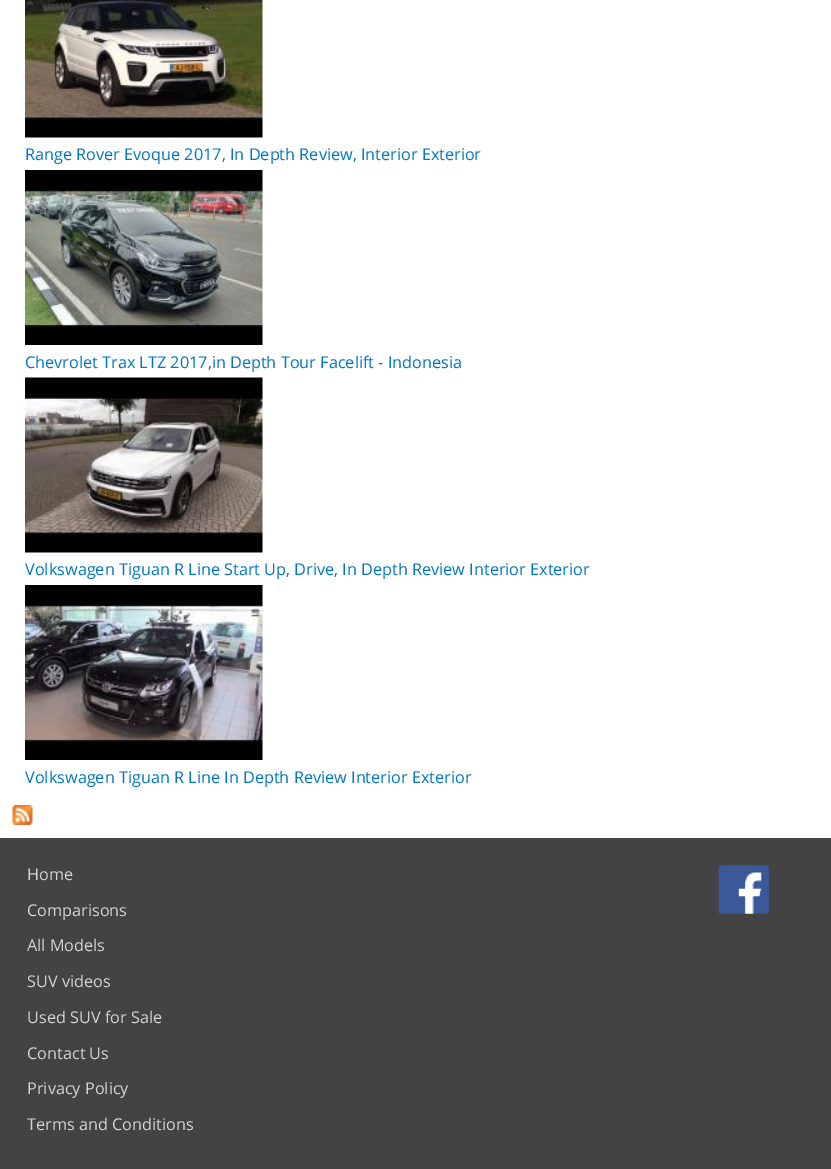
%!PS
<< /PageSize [831 1169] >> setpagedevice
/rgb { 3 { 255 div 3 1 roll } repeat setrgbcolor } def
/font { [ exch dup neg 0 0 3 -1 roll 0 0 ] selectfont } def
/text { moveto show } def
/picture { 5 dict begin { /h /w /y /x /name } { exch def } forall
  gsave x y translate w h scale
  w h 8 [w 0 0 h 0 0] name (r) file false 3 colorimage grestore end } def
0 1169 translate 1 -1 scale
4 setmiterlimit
255 255 255 rgb
0 0 831 1169 rectfill
(img_01.rgb) 25 0 238 138 picture
(img_02.rgb) 25 170 238 175 picture
(img_03.rgb) 25 377 238 176 picture
(img_04.rgb) 25 585 238 175 picture
(img_05.rgb) 12 805 21 20 picture
67 67 67 rgb
0 838 831 331 rectfill
(img_06.rgb) 718 864 51 50 picture
/OpenSans-Regular 16.25 font
0 119 192 rgb
(Range Rover Evoque 2017, In Depth Review, Interior Exterior) 25 160 text
(Chevrolet Trax LTZ 2017,in Depth Tour Facelift - Indonesia) 25 368 text
(Volkswagen Tiguan R Line Start Up, Drive, In Depth Review Interior Exterior) 25 575 text
(Volkswagen Tiguan R Line In Depth Review Interior Exterior) 25 783 text
211 211 211 rgb
(Home) 27 880 text
(Comparisons) 27 916 text
(All Models) 27 951 text
(SUV videos) 27 987 text
(Used SUV for Sale) 27 1023 text
(Contact Us) 27 1059 text
(Privacy Policy) 27 1094 text
(Terms and Conditions) 27 1130 text
showpage
